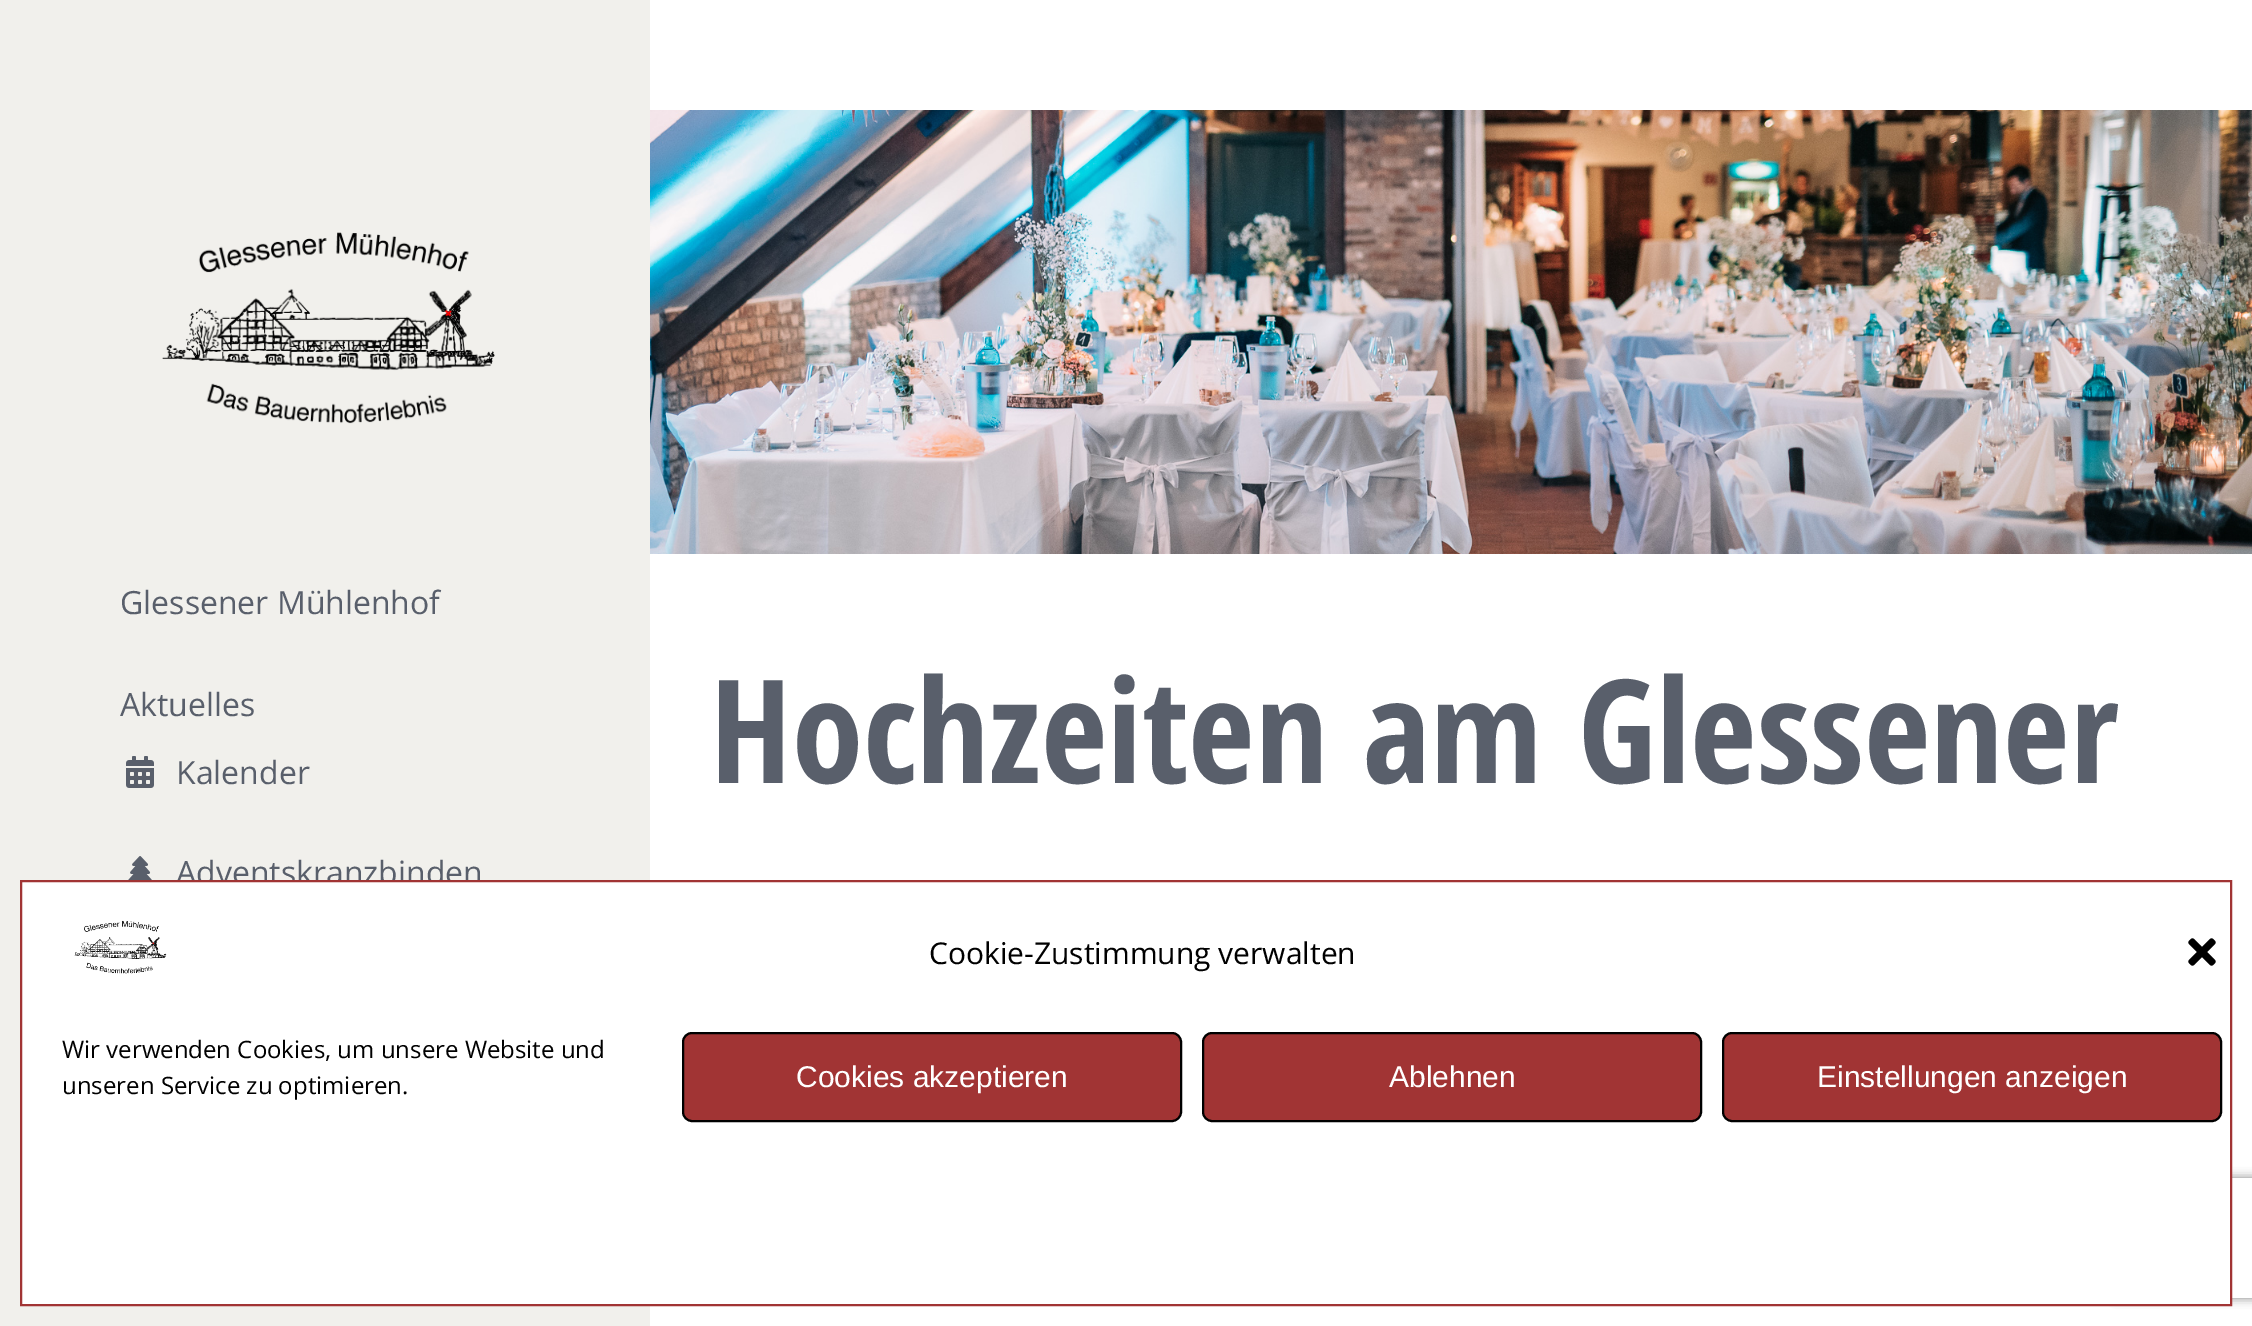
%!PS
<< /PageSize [2252 1326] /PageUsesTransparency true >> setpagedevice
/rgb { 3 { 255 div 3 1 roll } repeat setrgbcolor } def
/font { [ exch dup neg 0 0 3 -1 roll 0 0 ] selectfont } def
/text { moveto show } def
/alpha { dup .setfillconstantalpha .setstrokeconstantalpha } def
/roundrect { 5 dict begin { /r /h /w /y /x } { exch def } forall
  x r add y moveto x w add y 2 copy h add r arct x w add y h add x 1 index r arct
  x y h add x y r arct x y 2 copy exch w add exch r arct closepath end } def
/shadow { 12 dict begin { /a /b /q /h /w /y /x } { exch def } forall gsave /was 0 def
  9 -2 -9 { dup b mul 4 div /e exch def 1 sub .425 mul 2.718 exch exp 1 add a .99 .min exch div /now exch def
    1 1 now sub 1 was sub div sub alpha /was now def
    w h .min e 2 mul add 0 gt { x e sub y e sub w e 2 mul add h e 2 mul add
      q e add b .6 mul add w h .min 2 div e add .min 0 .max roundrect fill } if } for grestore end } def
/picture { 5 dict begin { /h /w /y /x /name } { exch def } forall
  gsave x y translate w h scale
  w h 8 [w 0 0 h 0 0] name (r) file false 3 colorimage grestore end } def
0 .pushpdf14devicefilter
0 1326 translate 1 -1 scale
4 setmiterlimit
255 255 255 rgb
0 0 2252 1326 rectfill
241 240 236 rgb
0 0 650 1326 rectfill
(img_01.rgb) 162 232 333 192 picture
(img_02.rgb) 126 756 28 32 picture
(img_03.rgb) 128 856 24 24 picture
(img_04.rgb) 650 110 1602 444 picture
gsave
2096 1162 moveto 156 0 rlineto 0 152 rlineto -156 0 rlineto closepath 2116 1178 moveto 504 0 rlineto 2 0 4 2 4 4 rcurveto 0 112 rlineto 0 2 -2 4 -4 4 rcurveto -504 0 rlineto -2 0 -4 -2 -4 -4 rcurveto 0 -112 rlineto 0 -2 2 -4 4 -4 rcurveto closepath eoclip newpath
128 128 128 rgb
2112 1178 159 120 4 5 1 shadow
grestore
/OpenSans-Regular 32 font
89 95 107 rgb
(Glessener Mühlenhof) 120 614 text
(Aktuelles) 120 716 text
(Kalender) 176 784 text
(Adventskranzbinden) 176 884 text
/OpenSansCondensed-Bold 144 font
(Hochzeiten am Glessener) 710 783 text
255 255 255 rgb
21 881 moveto 2210 0 rlineto 0 424 rlineto -2210 0 rlineto closepath gsave fill grestore
161 52 52 rgb
2 setlinewidth
stroke
(img_05.rgb) 74 920 93 54 picture
/OpenSans-Regular 30 font
0 0 0 rgb
(Cookie-Zustimmung verwalten) 929 964 text
(img_06.rgb) 2188 938 28 28 picture
/OpenSans-Regular 24 font
(Wir verwenden Cookies, um unsere Website und) 62 1058 text
(unseren Service zu optimieren.) 62 1094 text
161 52 52 rgb
683 1033 498 88 9 roundrect gsave fill grestore
0 0 0 rgb
stroke
/LiberationSans-Regular 30 font
255 255 255 rgb
(Cookies akzeptieren) 796 1087 text
161 52 52 rgb
1203 1033 498 88 9 roundrect gsave fill grestore
0 0 0 rgb
stroke
255 255 255 rgb
(Ablehnen) 1389 1087 text
161 52 52 rgb
1723 1033 498 88 9 roundrect gsave fill grestore
0 0 0 rgb
stroke
255 255 255 rgb
(Einstellungen anzeigen) 1817 1087 text
.poppdf14devicefilter showpage
